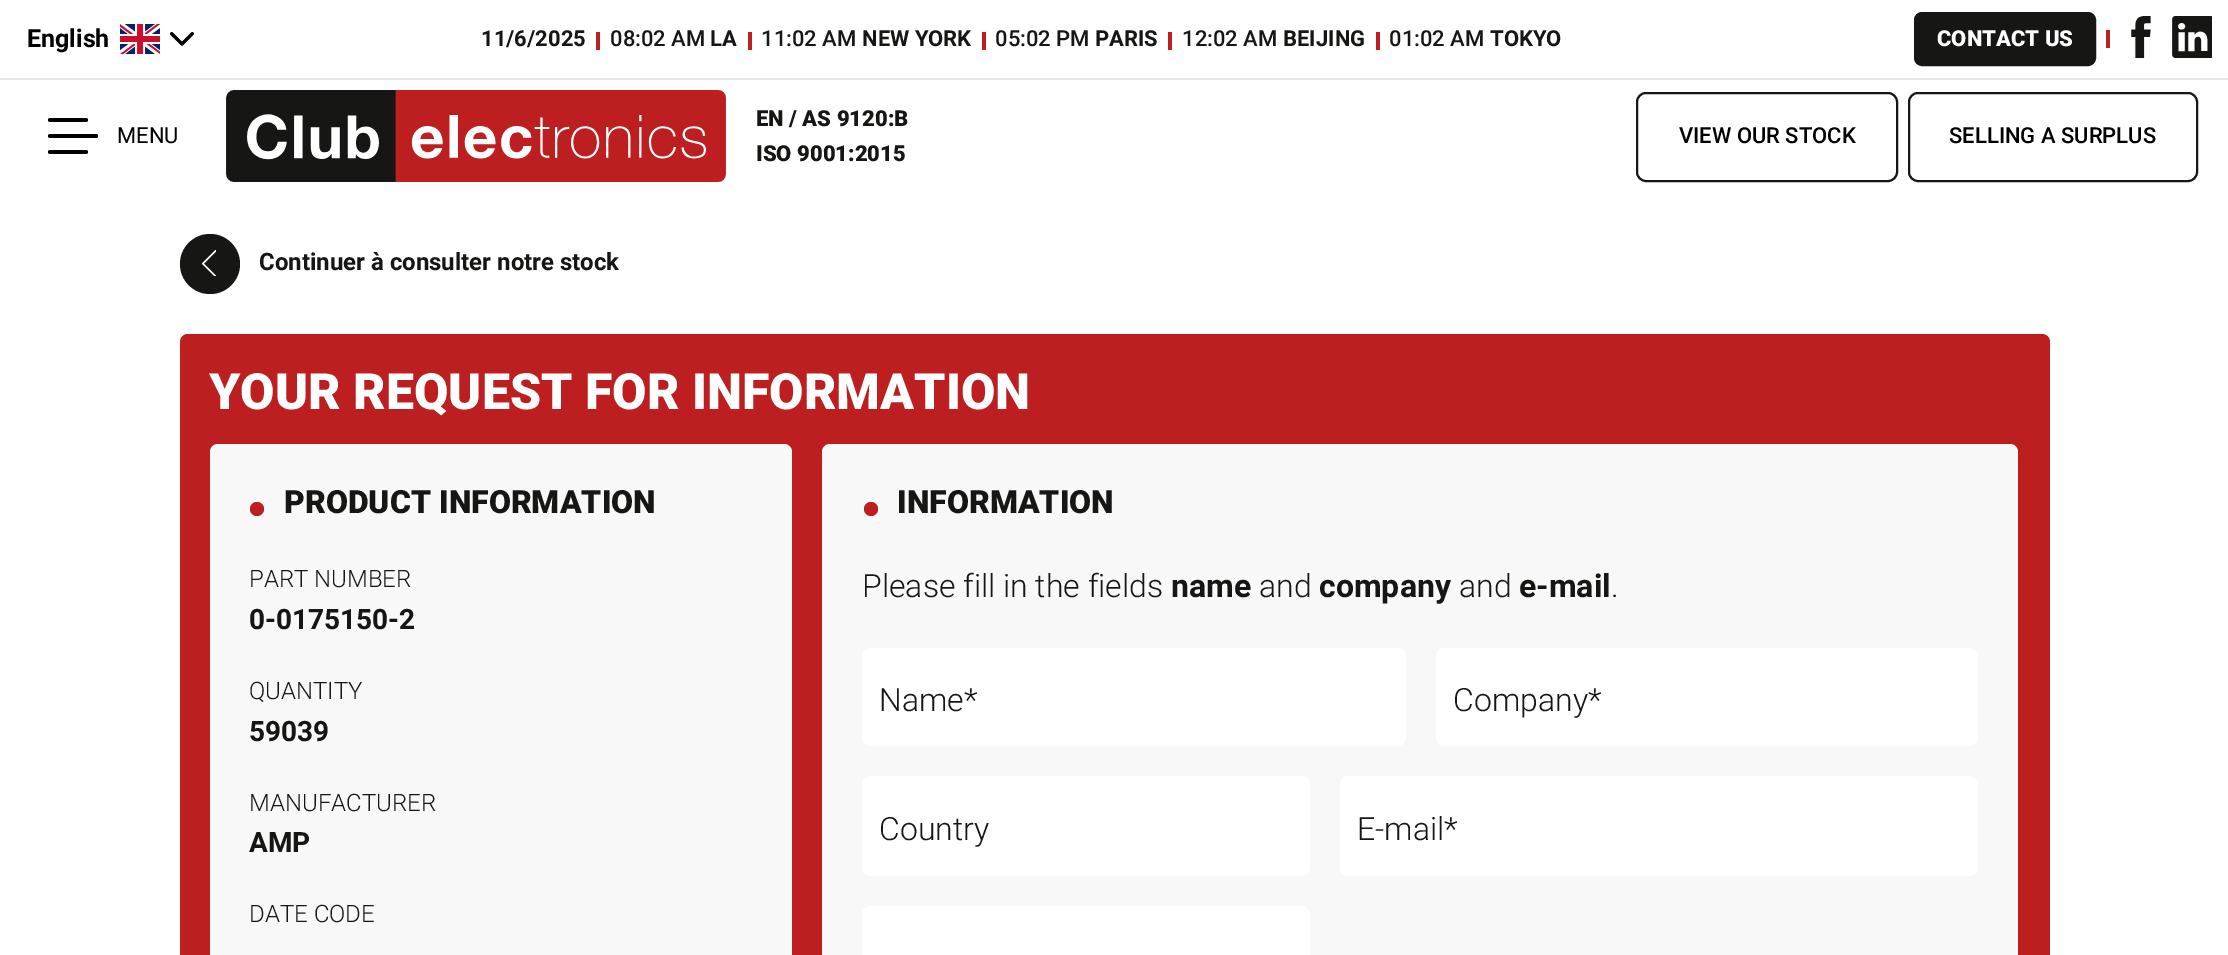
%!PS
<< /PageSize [2228 955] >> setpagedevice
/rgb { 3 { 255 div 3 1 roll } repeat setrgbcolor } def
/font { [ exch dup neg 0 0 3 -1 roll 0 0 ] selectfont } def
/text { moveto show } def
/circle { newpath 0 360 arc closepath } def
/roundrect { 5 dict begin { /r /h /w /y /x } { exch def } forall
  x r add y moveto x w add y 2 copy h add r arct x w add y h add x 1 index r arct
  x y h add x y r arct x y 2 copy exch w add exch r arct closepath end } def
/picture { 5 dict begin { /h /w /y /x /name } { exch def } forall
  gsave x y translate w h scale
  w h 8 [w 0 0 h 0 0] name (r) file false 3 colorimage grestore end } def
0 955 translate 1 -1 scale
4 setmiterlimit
255 255 255 rgb
0 0 2228 955 rectfill
232 232 232 rgb
0 78 2228 2 rectfill
(img_01.rgb) 120 24 40 30 picture
(img_02.rgb) 170 32 24 14 picture
189 31 32 rgb
596 32 4 18 rectfill
748 32 4 18 rectfill
982 32 4 18 rectfill
1168 32 4 18 rectfill
1376 32 4 18 rectfill
22 22 21 rgb
1915 13 180 52 7 roundrect gsave fill grestore
2 setlinewidth
stroke
189 31 32 rgb
2106 30 4 18 rectfill
(img_03.rgb) 2131 16 20 42 picture
(img_04.rgb) 2172 16 40 42 picture
0 0 0 rgb
48 118 40 4 2 roundrect fill
48 134 50 4 2 roundrect fill
48 150 40 4 2 roundrect fill
(img_05.rgb) 226 90 500 92 picture
22 22 21 rgb
1637 93 260 88 9 roundrect stroke
1909 93 288 88 9 roundrect stroke
210 264 30 circle fill
(img_06.rgb) 202 250 14 26 picture
189 31 32 rgb
180 334 1870 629 8 roundrect fill
248 248 248 rgb
210 444 582 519 8 roundrect fill
189 31 32 rgb
257 509 7 circle fill
248 248 248 rgb
822 444 1196 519 8 roundrect fill
189 31 32 rgb
871 509 7 circle fill
255 255 255 rgb
863 649 542 96 7 roundrect gsave fill grestore
stroke
1437 649 540 96 7 roundrect gsave fill grestore
stroke
863 777 446 98 7 roundrect gsave fill grestore
stroke
1341 777 636 98 7 roundrect gsave fill grestore
stroke
864 908 444 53 6 roundrect fill
863 907 446 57 7 roundrect stroke
/Roboto-Bold 25 font
0 0 0 rgb
(English) 27 47 text
/Roboto-Bold 22 font
22 22 21 rgb
(11/6/2025) 481 46 text
/Roboto-Medium 22 font
(08:02 AM) 610 46 text
/Roboto-Bold 22 font
(LA) 710 46 text
/Roboto-Medium 22 font
(11:02 AM) 761 46 text
/Roboto-Bold 22 font
(NEW YORK) 862 46 text
/Roboto-Medium 22 font
(05:02 PM) 995 46 text
/Roboto-Bold 22 font
(PARIS) 1095 46 text
/Roboto-Medium 22 font
(12:02 AM) 1182 46 text
/Roboto-Bold 22 font
(BEIJING) 1283 46 text
/Roboto-Medium 22 font
(01:02 AM) 1389 46 text
/Roboto-Bold 22 font
(TOKYO) 1490 46 text
/Roboto-Black 22 font
255 255 255 rgb
(CONTACT US) 1937 46 text
/Roboto-Regular 22 font
0 0 0 rgb
(MENU) 117 143 text
/Roboto-Black 22 font
22 22 21 rgb
(EN / AS 9120:B) 756 126 text
(ISO 9001:2015) 756 161 text
/Roboto-Medium 22 font
0 0 0 rgb
(VIEW OUR STOCK) 1679 143 text
(SELLING A SURPLUS) 1949 143 text
/Roboto-Bold 24 font
22 22 21 rgb
(Continuer à consulter notre stock) 259 270 text
/Roboto-Black 50 font
255 255 255 rgb
(YOUR REQUEST FOR INFORMATION) 209 409 text
/Roboto-Black 32 font
22 22 21 rgb
(PRODUCT INFORMATION) 284 513 text
/Roboto-Light 24 font
(PART NUMBER) 249 587 text
/Roboto-Bold 28 font
(0-0175150-2) 249 629 text
/Roboto-Light 24 font
(QUANTITY) 249 699 text
/Roboto-Bold 28 font
(59039) 249 741 text
/Roboto-Light 24 font
(MANUFACTURER) 249 811 text
/Roboto-Bold 28 font
(AMP) 249 852 text
/Roboto-Light 24 font
(DATE CODE) 249 922 text
/Roboto-Black 32 font
(INFORMATION) 897 513 text
/Roboto-Light 32 font
(Please fill in the fields) 862 597 text
/Roboto-Bold 32 font
(name) 1171 597 text
/Roboto-Light 32 font
(and) 1259 597 text
/Roboto-Bold 32 font
(company) 1319 597 text
/Roboto-Light 32 font
(and) 1459 597 text
/Roboto-Bold 32 font
(e-mail) 1519 597 text
/Roboto-Light 32 font
(.) 1611 597 text
(Name*) 879 711 text
(Company*) 1453 711 text
(Country) 879 840 text
(E-mail*) 1357 840 text
showpage
